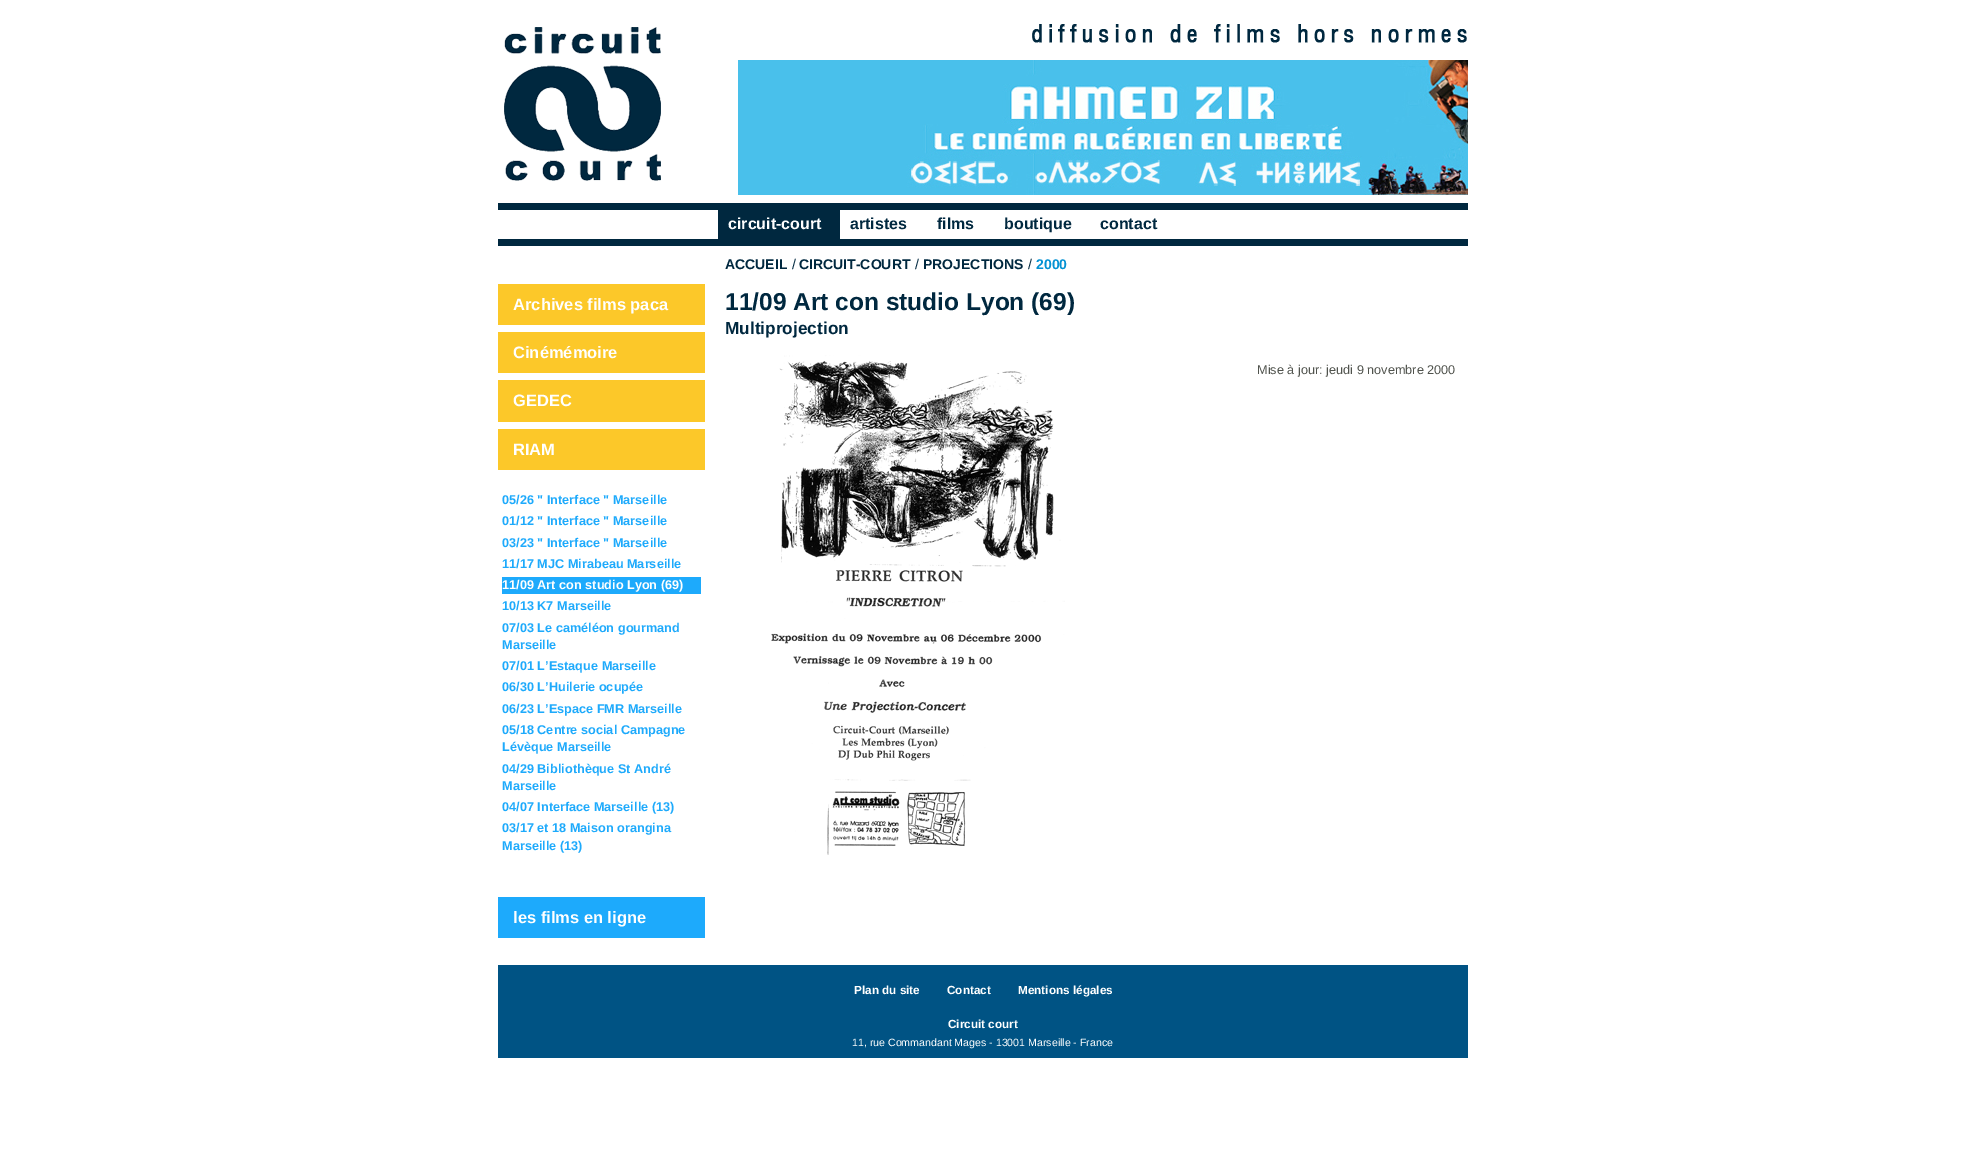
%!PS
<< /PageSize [1966 1156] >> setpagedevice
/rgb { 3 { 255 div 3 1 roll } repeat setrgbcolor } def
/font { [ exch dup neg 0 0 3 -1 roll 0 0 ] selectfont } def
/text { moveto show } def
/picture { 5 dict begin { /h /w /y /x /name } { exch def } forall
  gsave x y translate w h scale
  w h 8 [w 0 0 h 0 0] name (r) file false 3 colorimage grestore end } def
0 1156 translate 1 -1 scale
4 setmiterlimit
255 255 255 rgb
0 0 1966 1156 rectfill
(img_01.rgb) 1032 24 435 19 picture
(img_02.rgb) 504 27 157 154 picture
(img_03.rgb) 738 60 730 135 picture
0 40 63 rgb
498 203 970 7 rectfill
498 239 970 7 rectfill
718 210 122 29 rectfill
252 200 41 rgb
498 284 207 41 rectfill
498 332 207 41 rectfill
498 380 207 42 rectfill
498 429 207 41 rectfill
29 170 252 rgb
502 577 199 17 rectfill
498 897 207 41 rectfill
(img_04.rgb) 771 355 294 500 picture
0 83 132 rgb
498 965 970 93 rectfill
/LiberationSans-Bold 16 font
255 255 255 rgb
(circuit-court) 728 229 text
0 40 63 rgb
(artistes) 850 229 text
(films) 937 229 text
(boutique) 1004 229 text
(contact) 1100 229 text
/LiberationSans-Bold 16.5 font
255 255 255 rgb
(Archives films paca) 513 310 text
(Cinémémoire) 513 358 text
(GEDEC) 513 406 text
(RIAM) 513 455 text
/LiberationSans-Bold 12.7 font
29 170 252 rgb
(05/26 " Interface " Marseille) 502 504 text
(01/12 " Interface " Marseille) 502 525 text
(03/23 " Interface " Marseille) 502 547 text
(11/17 MJC Mirabeau Marseille) 502 568 text
255 255 255 rgb
(11/09 Art con studio Lyon \(69\)) 502 589 text
29 170 252 rgb
(10/13 K7 Marseille) 502 610 text
(07/03 Le caméléon gourmand) 502 632 text
(Marseille) 502 649 text
(07/01 L’Estaque Marseille) 502 670 text
(06/30 L’Huilerie ocupée) 502 691 text
(06/23 L’Espace FMR Marseille) 502 713 text
(05/18 Centre social Campagne) 502 734 text
(Lévèque Marseille) 502 751 text
(04/29 Bibliothèque St André) 502 773 text
(Marseille) 502 790 text
(04/07 Interface Marseille \(13\)) 502 811 text
(03/17 et 18 Maison orangina) 502 832 text
(Marseille \(13\)) 502 850 text
/LiberationSans-Bold 16.5 font
255 255 255 rgb
(les films en ligne) 513 923 text
/LiberationSans-Bold 14 font
0 40 63 rgb
(ACCUEIL) 725 269 text
/LiberationSans-Regular 14 font
(/) 792 269 text
/LiberationSans-Bold 14 font
(CIRCUIT-COURT) 799 269 text
/LiberationSans-Regular 14 font
(/) 915 269 text
/LiberationSans-Bold 14 font
(PROJECTIONS) 923 269 text
/LiberationSans-Regular 14 font
(/) 1028 269 text
/LiberationSans-Bold 14 font
4 146 211 rgb
(2000) 1036 269 text
/LiberationSans-Bold 24.5 font
0 40 63 rgb
(11/09 Art con studio Lyon \(69\)) 725 310 text
/LiberationSans-Bold 17.25 font
(Multiprojection) 725 334 text
/LiberationSans-Regular 12.7 font
80 83 77 rgb
(Mise à jour: jeudi 9 novembre 2000) 1257 374 text
/LiberationSans-Bold 11.75 font
255 255 255 rgb
(Plan du site) 854 994 text
(Contact) 947 994 text
(Mentions légales) 1018 994 text
(Circuit court) 948 1028 text
/LiberationSans-Regular 10.6 font
(11, rue Commandant Mages - 13001 Marseille - France) 852 1046 text
showpage
